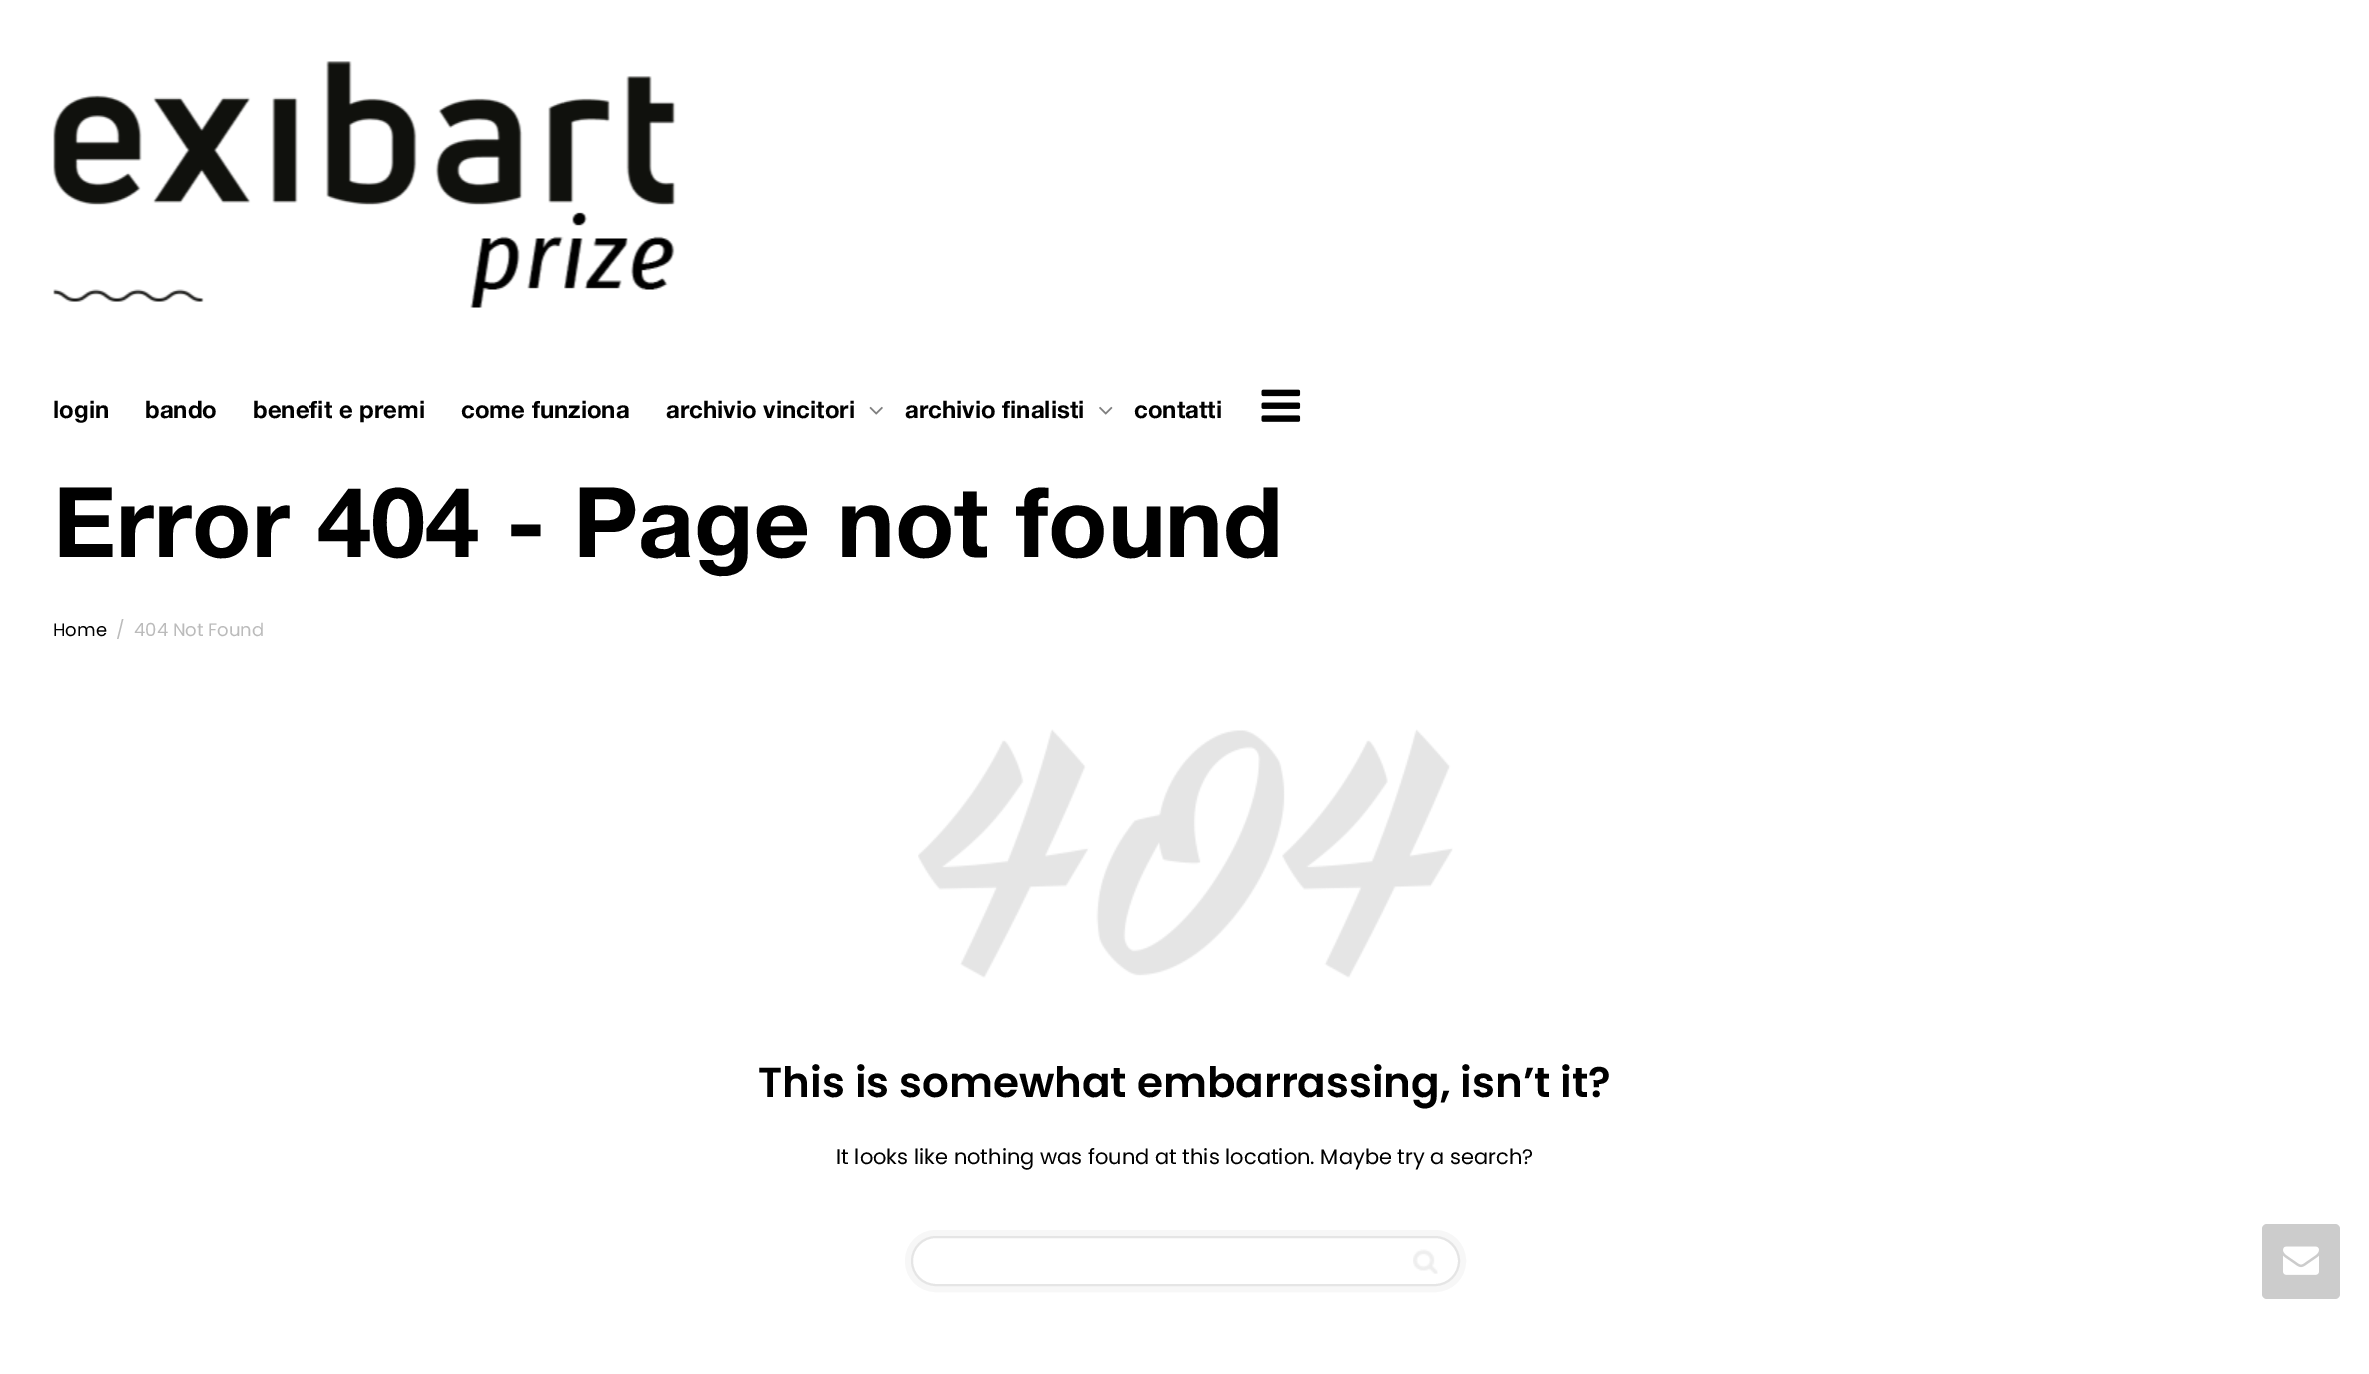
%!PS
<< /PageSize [2369 1374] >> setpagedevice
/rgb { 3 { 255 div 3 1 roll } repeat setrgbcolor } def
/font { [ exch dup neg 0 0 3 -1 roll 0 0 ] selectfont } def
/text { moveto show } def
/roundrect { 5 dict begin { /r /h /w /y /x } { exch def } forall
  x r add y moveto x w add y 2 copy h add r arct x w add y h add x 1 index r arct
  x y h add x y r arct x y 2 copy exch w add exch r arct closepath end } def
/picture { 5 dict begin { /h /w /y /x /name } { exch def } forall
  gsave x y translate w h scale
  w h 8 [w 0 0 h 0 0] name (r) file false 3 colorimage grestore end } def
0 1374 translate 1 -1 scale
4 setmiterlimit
255 255 255 rgb
0 0 2369 1374 rectfill
(img_01.rgb) 53 61 623 247 picture
(img_02.rgb) 869 406 14 9 picture
(img_03.rgb) 1099 406 14 9 picture
(img_04.rgb) 1261 389 40 33 picture
(img_05.rgb) 918 729 535 249 picture
247 247 247 rgb
6 setlinewidth
908 1233 555 56 28 roundrect stroke
229 229 229 rgb
2 setlinewidth
912 1237 547 48 24 roundrect stroke
(img_06.rgb) 1413 1249 25 25 picture
204 204 204 rgb
2262 1224 78 75 5 roundrect fill
(img_07.rgb) 2283 1246 36 29 picture
/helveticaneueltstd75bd-Bold 24 font
0 0 0 rgb
(login) 53 418 text
(bando) 145 418 text
(benefit e premi) 253 418 text
(come funziona) 461 418 text
(archivio vincitori) 666 418 text
(archivio finalisti) 905 418 text
(contatti) 1134 418 text
/helveticaneueltstd75bd-Bold 97.5 font
(Error 404 - Page not found) 53 557 text
/Poppins-Regular 18 font
(Home) 53 636 text
187 187 187 rgb
(/) 116 636 text
(404 Not Found) 134 636 text
/Poppins-SemiBold 42 font
0 0 0 rgb
(This is somewhat embarrassing, isn’t it?) 758 1097 text
/Poppins-Regular 21 font
(It looks like nothing was found at this location. Maybe try a search?) 836 1164 text
showpage
